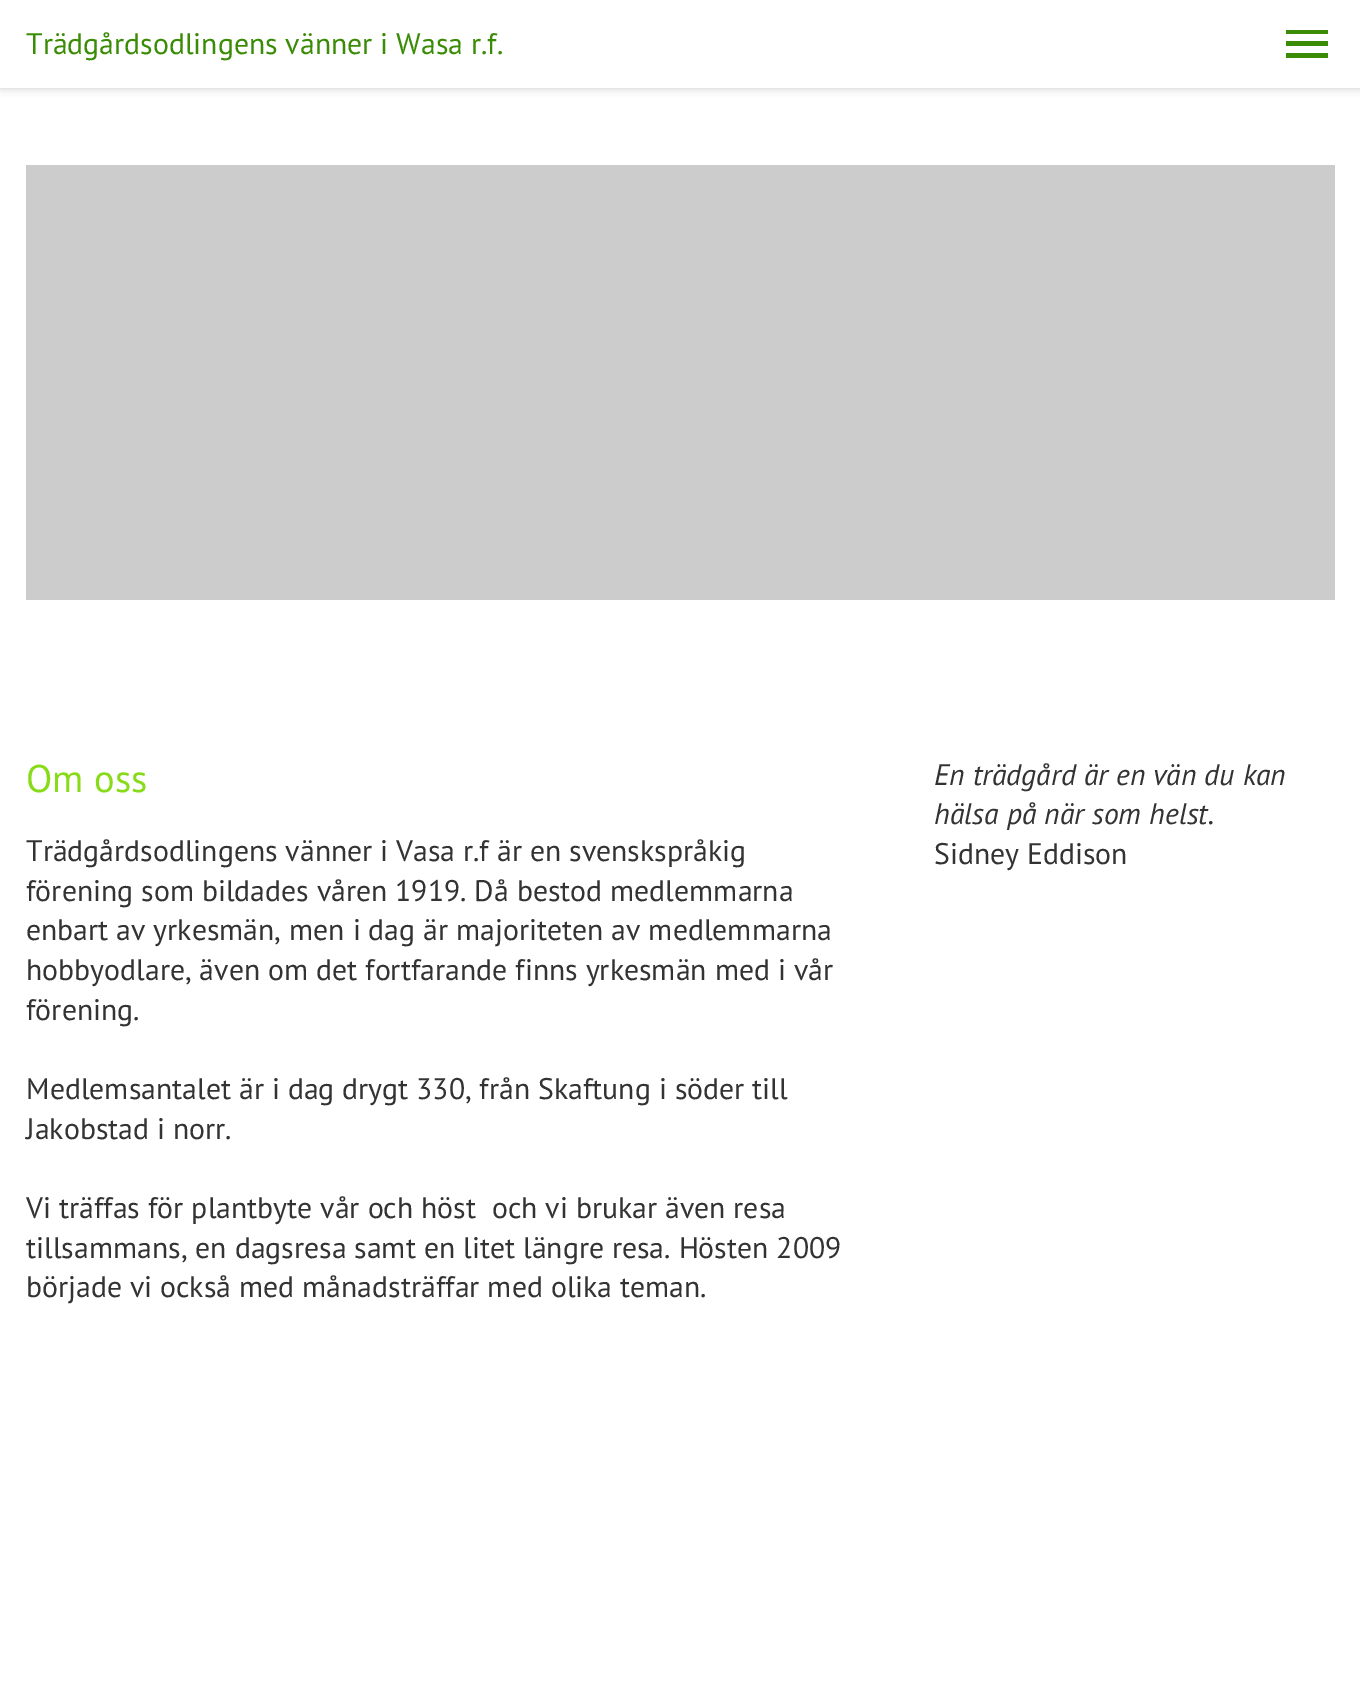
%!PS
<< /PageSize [1360 1699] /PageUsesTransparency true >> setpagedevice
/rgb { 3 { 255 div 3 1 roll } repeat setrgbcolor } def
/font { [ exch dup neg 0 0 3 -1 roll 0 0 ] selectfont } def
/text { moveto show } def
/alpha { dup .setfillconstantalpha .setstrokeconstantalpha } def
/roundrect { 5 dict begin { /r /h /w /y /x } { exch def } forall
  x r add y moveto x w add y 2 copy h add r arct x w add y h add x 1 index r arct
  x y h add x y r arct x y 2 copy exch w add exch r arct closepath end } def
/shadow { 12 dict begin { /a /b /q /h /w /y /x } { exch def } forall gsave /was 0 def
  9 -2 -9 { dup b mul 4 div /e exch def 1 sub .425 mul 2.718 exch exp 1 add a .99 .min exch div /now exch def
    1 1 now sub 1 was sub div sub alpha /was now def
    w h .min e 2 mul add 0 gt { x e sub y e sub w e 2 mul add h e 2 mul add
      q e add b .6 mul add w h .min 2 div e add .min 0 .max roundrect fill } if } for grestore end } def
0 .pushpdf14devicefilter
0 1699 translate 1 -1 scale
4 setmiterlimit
255 255 255 rgb
0 0 1360 1699 rectfill
0 0 0 rgb
0 0 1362 88 0 4.5 0.2 shadow
255 255 255 rgb
0 0 1360 88 rectfill
58 140 6 rgb
1286 30 moveto 42 0 rlineto 0 4 rlineto -42 0 rlineto closepath 1286 46 moveto 0 -5 rlineto 42 0 rlineto 0 5 rlineto closepath 1286 58 moveto 0 -5 rlineto 42 0 rlineto 0 5 rlineto closepath fill
204 204 204 rgb
26 165 1309 435 rectfill
/PTSans-Regular 29.75 font
58 140 6 rgb
(Trädgårdsodlingens vänner i Wasa r.f.) 26 54 text
/PTSans-Regular 38.5 font
135 219 25 rgb
(Om oss) 26 792 text
/PTSans-Regular 29.75 font
51 51 51 rgb
(Trädgårdsodlingens vänner i Vasa r.f är en svenskspråkig) 26 861 text
(förening som bildades våren 1919. Då bestod medlemmarna) 26 901 text
(enbart av yrkesmän, men i dag är majoriteten av medlemmarna) 26 940 text
(hobbyodlare, även om det fortfarande finns yrkesmän med i vår) 26 980 text
(förening.) 26 1020 text
(Medlemsantalet är i dag drygt 330, från Skaftung i söder till) 26 1099 text
(Jakobstad i norr.) 26 1139 text
(Vi träffas för plantbyte vår och höst  och vi brukar även resa) 26 1218 text
(tillsammans, en dagsresa samt en litet längre resa. Hösten 2009) 26 1258 text
(började vi också med månadsträffar med olika teman.) 26 1297 text
/PTSans-Italic 29.75 font
(En trädgård är en vän du kan) 934 785 text
(hälsa på när som helst.) 934 824 text
/PTSans-Regular 29.75 font
(Sidney Eddison) 934 864 text
.poppdf14devicefilter showpage
